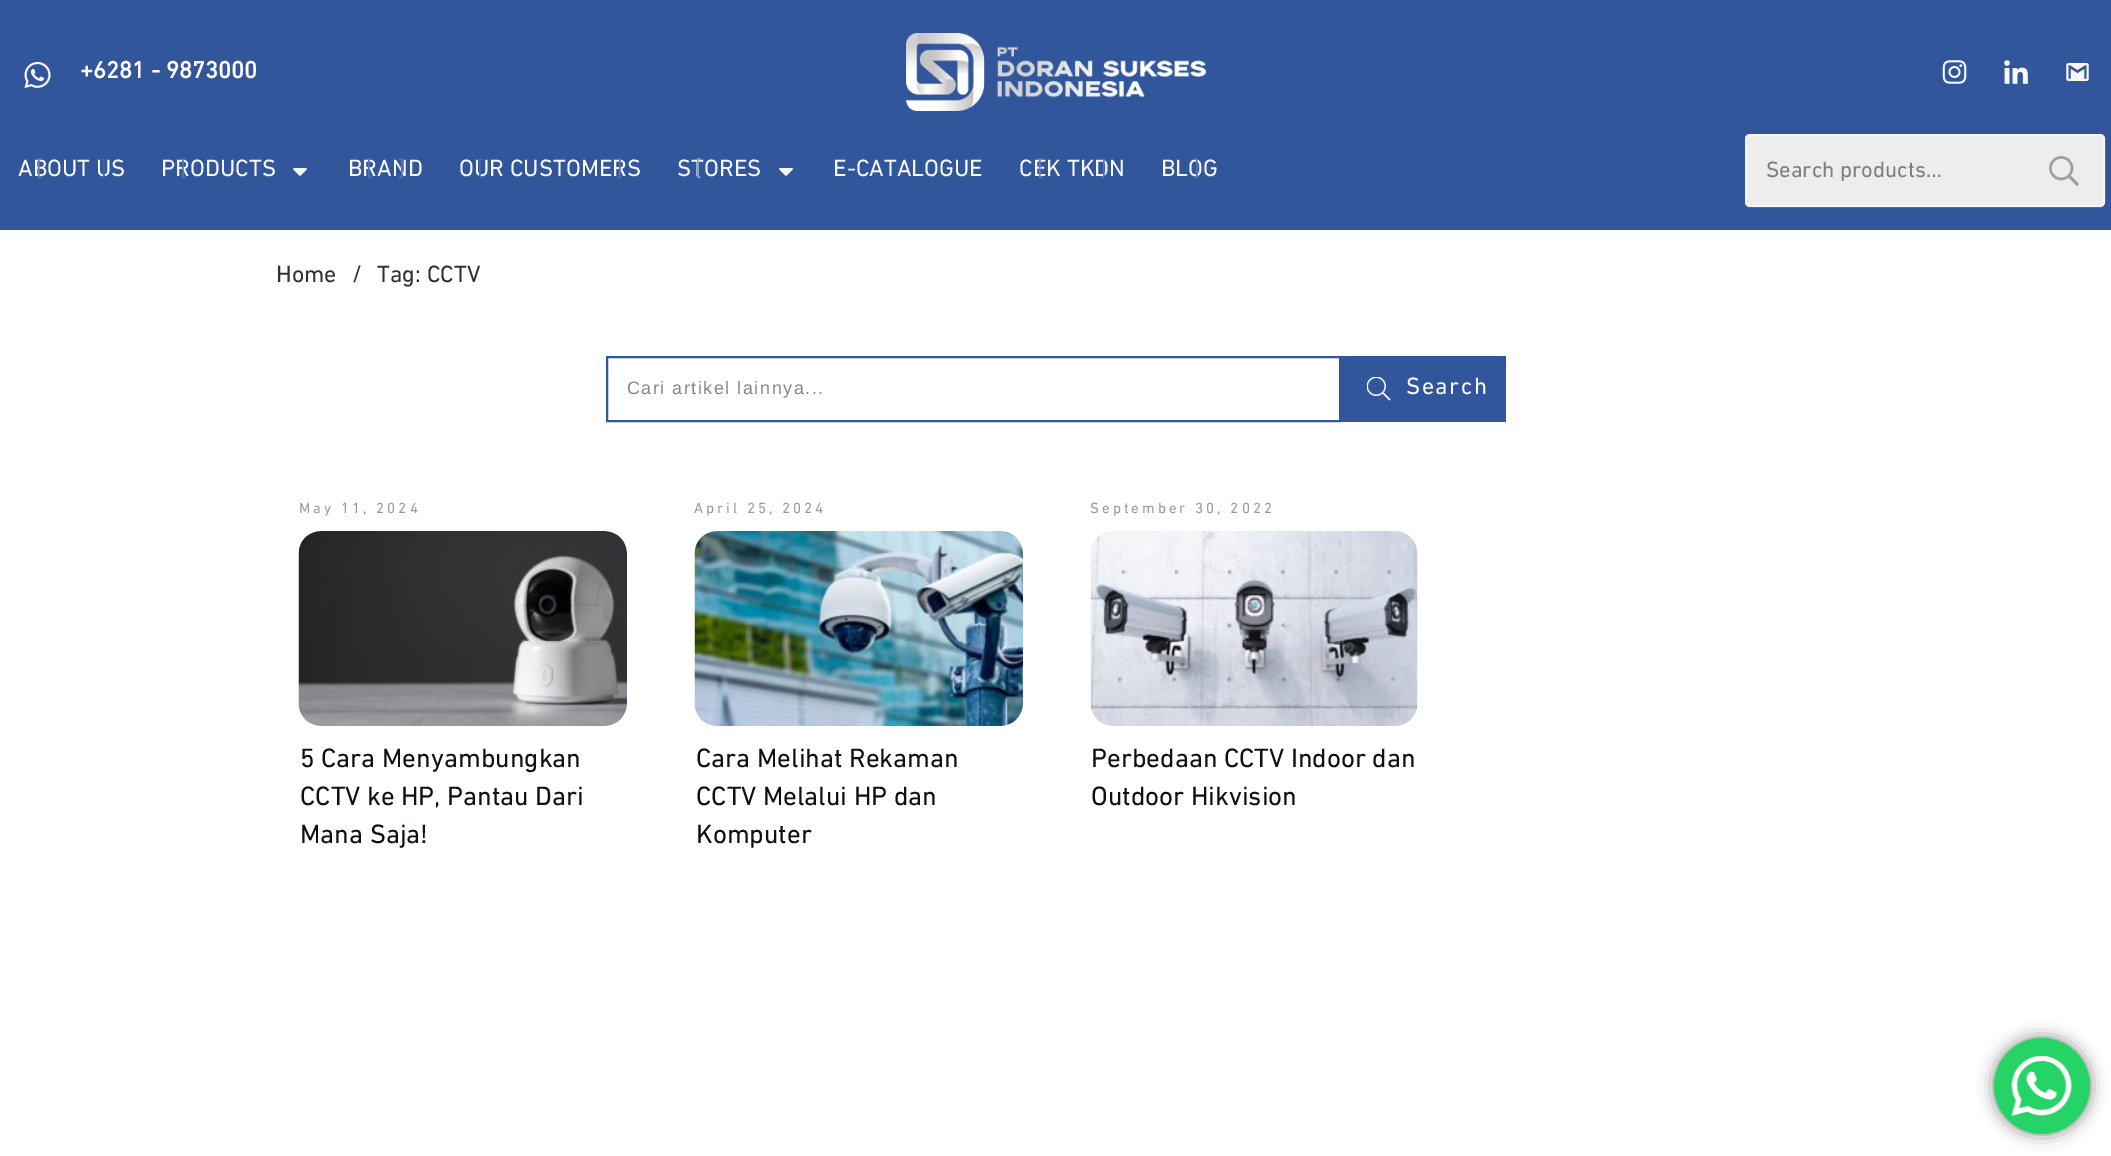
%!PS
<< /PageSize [2111 1156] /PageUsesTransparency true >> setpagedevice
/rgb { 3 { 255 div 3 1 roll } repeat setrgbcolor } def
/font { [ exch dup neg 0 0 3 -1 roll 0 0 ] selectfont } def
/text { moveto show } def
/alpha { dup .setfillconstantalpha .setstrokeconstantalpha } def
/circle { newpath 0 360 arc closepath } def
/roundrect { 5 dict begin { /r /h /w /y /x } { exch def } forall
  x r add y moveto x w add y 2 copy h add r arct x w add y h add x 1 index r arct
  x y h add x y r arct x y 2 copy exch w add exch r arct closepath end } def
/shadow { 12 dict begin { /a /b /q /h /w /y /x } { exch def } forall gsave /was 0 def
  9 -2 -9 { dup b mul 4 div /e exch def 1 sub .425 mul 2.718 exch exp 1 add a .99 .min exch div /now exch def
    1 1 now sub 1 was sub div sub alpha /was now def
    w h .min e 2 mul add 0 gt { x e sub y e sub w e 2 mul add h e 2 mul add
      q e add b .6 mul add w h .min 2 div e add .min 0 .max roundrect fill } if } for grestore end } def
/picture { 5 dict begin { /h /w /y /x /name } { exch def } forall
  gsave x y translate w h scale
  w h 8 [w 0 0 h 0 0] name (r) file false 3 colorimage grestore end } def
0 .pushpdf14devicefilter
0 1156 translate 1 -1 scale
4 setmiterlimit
255 255 255 rgb
0 0 2111 1156 rectfill
49 86 155 rgb
0 0 2111 230 rectfill
(img_01.rgb) 24 61 27 28 picture
(img_02.rgb) 906 33 300 78 picture
(img_03.rgb) 1942 60 25 24 picture
(img_04.rgb) 2004 60 24 24 picture
(img_05.rgb) 2066 63 23 18 picture
(img_06.rgb) 293 168 14 8 picture
(img_06.rgb) 779 168 14 8 picture
237 237 237 rgb
1745 134 360 73 5 roundrect fill
0.5 alpha
255 255 255 rgb
2 setlinewidth
1746 135 358 71 4 roundrect stroke
1 alpha
(img_07.rgb) 2049 156 30 30 picture
49 86 155 rgb
607 357 733 64 rectstroke
1341 356 165 66 rectfill
(img_08.rgb) 1367 377 24 24 picture
(img_09.rgb) 298 531 329 195 picture
(img_10.rgb) 694 531 329 195 picture
(img_11.rgb) 1090 531 328 195 picture
0 0 0 rgb
1994 1038 96 96 48 8 0.5 shadow
37 211 102 rgb
2042 1086 48 circle fill
(img_12.rgb) 2011 1056 61 60 picture
/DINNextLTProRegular-Bold 24 font
255 255 255 rgb
(+6281 - 9873000) 80 78 text
/DINNextLTProRegular-Regular 24 font
248 248 248 rgb
(ABOUT US) 18 176 text
68 102 164 rgb
(]) 100 176 text
101 128 179 rgb
([) 36 176 text
248 248 248 rgb
(PRODUCTS) 161 176 text
86 116 172 rgb
([) 180 176 text
248 248 248 rgb
(BRAND) 348 176 text
86 116 172 rgb
(]) 398 176 text
([) 366 176 text
248 248 248 rgb
(OUR CUSTOMERS) 459 176 text
86 116 172 rgb
(]) 616 176 text
68 102 164 rgb
([) 477 176 text
248 248 248 rgb
(STORES) 677 176 text
141 161 198 rgb
([) 695 176 text
248 248 248 rgb
(E-CATALOGUE) 833 176 text
(CEK TKDN) 1019 176 text
86 116 172 rgb
(]) 1100 176 text
101 128 179 rgb
([) 1037 176 text
248 248 248 rgb
(BLOG) 1161 176 text
86 116 172 rgb
(]) 1193 176 text
/DINNextLTProRegular-Regular 22.5 font
125 127 129 rgb
(Search products…) 1766 177 text
/DINNextLTProRegular-Regular 24 font
48 48 48 rgb
(Home) 276 282 text
(/) 352 282 text
(Tag: CCTV) 377 282 text
/LiberationSans-Regular 18 font
133 133 133 rgb
627 394 moveto 1.5 0 (Cari artikel lainnya...) ashow
/DINNextLTProRegular-Regular 24 font
255 255 255 rgb
1406 394 moveto 1.5 0 (Search) ashow
/DINNextLTProRegular-Regular 15 font
153 153 153 rgb
299 513 moveto 3 0 (May 11, 2024) ashow
/DINNextLTProRegular-Regular 27 font
12 17 21 rgb
(5 Cara Menyambungkan) 300 767 text
(CCTV ke HP, Pantau Dari) 300 805 text
(Mana Saja!) 300 843 text
/DINNextLTProRegular-Regular 15 font
153 153 153 rgb
694 513 moveto 3 0 (April 25, 2024) ashow
/DINNextLTProRegular-Regular 27 font
12 17 21 rgb
(Cara Melihat Rekaman) 696 767 text
(CCTV Melalui HP dan) 696 805 text
(Komputer) 696 843 text
/DINNextLTProRegular-Regular 15 font
153 153 153 rgb
1090 513 moveto 3 0 (September 30, 2022) ashow
/DINNextLTProRegular-Regular 27 font
12 17 21 rgb
(Perbedaan CCTV Indoor dan) 1091 767 text
(Outdoor Hikvision) 1091 805 text
.poppdf14devicefilter showpage
